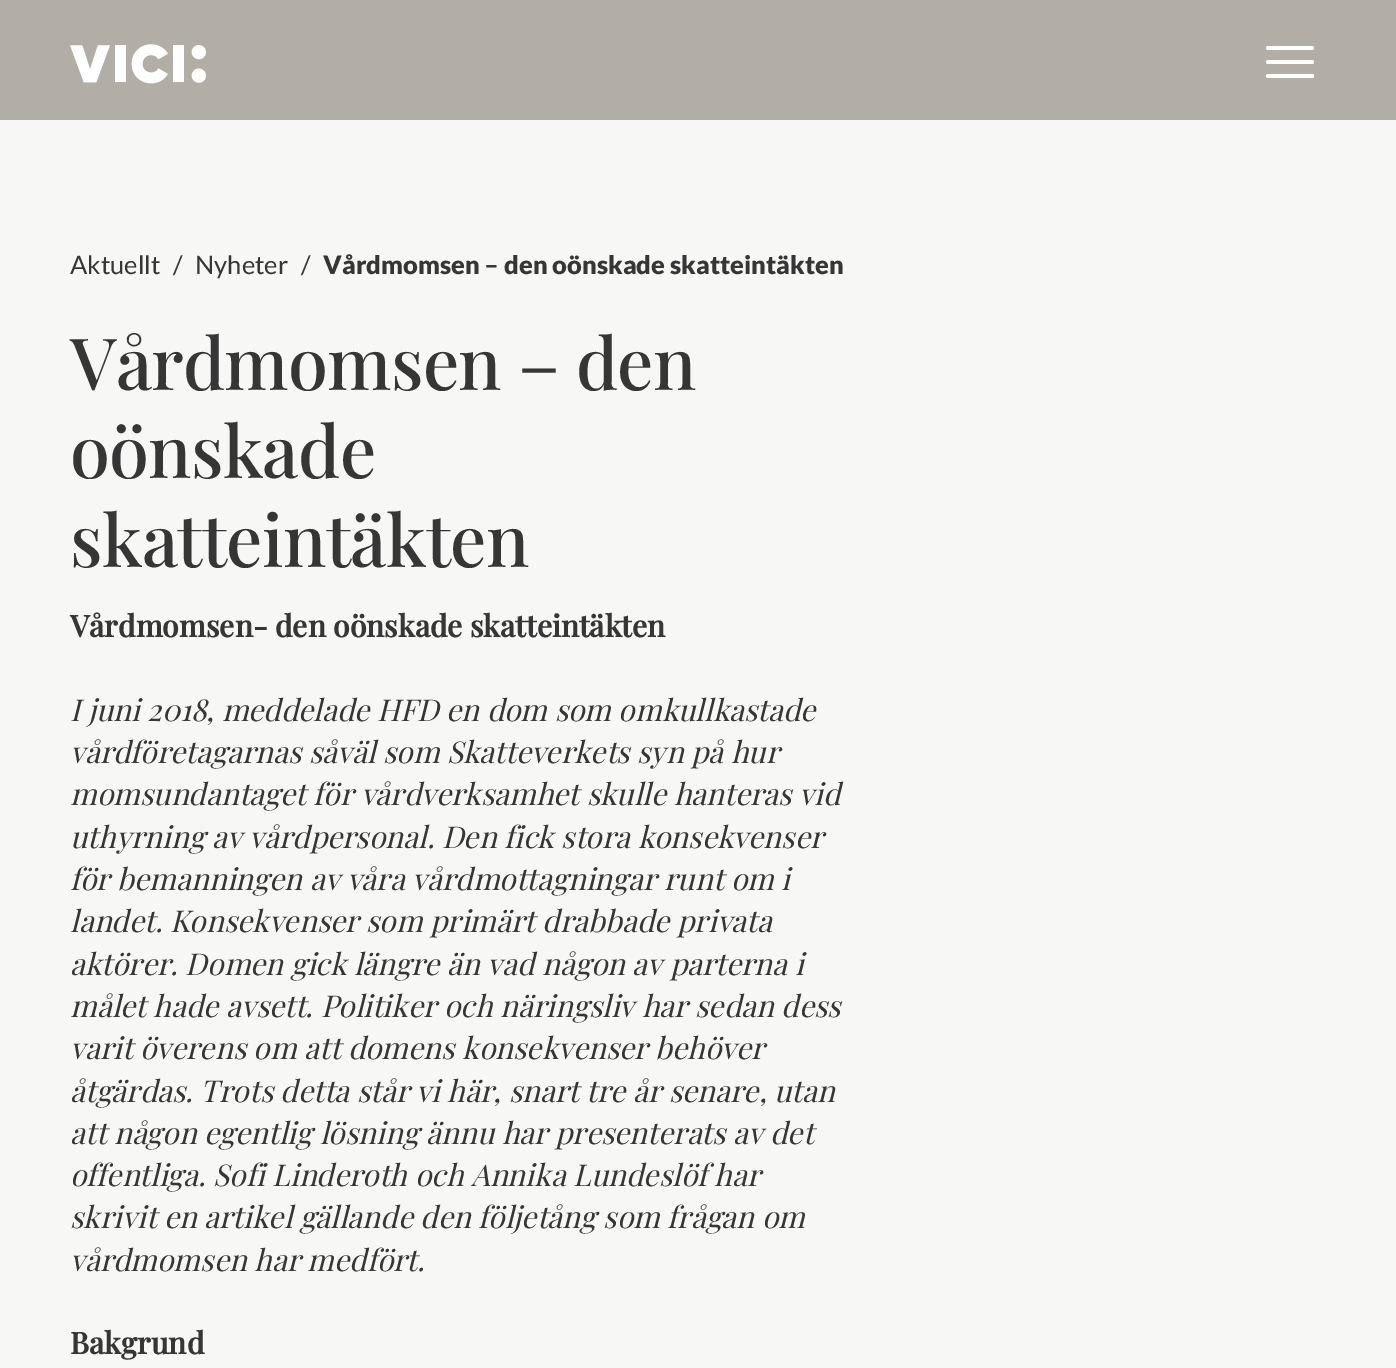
%!PS
<< /PageSize [1396 1368] >> setpagedevice
/rgb { 3 { 255 div 3 1 roll } repeat setrgbcolor } def
/font { [ exch dup neg 0 0 3 -1 roll 0 0 ] selectfont } def
/text { moveto show } def
/roundrect { 5 dict begin { /r /h /w /y /x } { exch def } forall
  x r add y moveto x w add y 2 copy h add r arct x w add y h add x 1 index r arct
  x y h add x y r arct x y 2 copy exch w add exch r arct closepath end } def
/picture { 5 dict begin { /h /w /y /x /name } { exch def } forall
  gsave x y translate w h scale
  w h 8 [w 0 0 h 0 0] name (r) file false 3 colorimage grestore end } def
0 1368 translate 1 -1 scale
4 setmiterlimit
247 247 246 rgb
0 0 1396 1368 rectfill
178 174 166 rgb
0 0 1396 120 rectfill
(img_01.rgb) 70 44 136 40 picture
255 255 255 rgb
1266 60 48 4 2 roundrect fill
1266 46 48 4 2 roundrect fill
1266 74 48 4 2 roundrect fill
/Lato-Regular 25.5 font
54 54 54 rgb
(Aktuellt) 70 274 text
(/) 173 274 text
(Nyheter) 195 274 text
(/) 301 274 text
/Lato-Black 25.5 font
(Vårdmomsen – den oönskade skatteintäkten) 323 274 text
/PlayfairDisplay-Medium 72 font
70 390 moveto -0.75 0 (Vårdmomsen – den) ashow
70 478 moveto -0.75 0 (oönskade) ashow
70 567 moveto -0.75 0 (skatteintäkten) ashow
/PlayfairDisplay-Bold 30 font
(Vårdmomsen- den oönskade skatteintäkten) 70 637 text
/PlayfairDisplay-Italic 30 font
(I juni 2018, meddelade HFD en dom som omkullkastade) 70 721 text
(vårdföretagarnas såväl som Skatteverkets syn på hur) 70 763 text
(momsundantaget för vårdverksamhet skulle hanteras vid) 70 805 text
(uthyrning av vårdpersonal. Den fick stora konsekvenser) 70 848 text
(för bemanningen av våra vårdmottagningar runt om i) 70 890 text
(landet. Konsekvenser som primärt drabbade privata) 70 932 text
(aktörer. Domen gick längre än vad någon av parterna i) 70 975 text
(målet hade avsett. Politiker och näringsliv har sedan dess) 70 1017 text
(varit överens om att domens konsekvenser behöver) 70 1059 text
(åtgärdas. Trots detta står vi här, snart tre år senare, utan) 70 1102 text
(att någon egentlig lösning ännu har presenterats av det) 70 1144 text
(offentliga. Sofi Linderoth och Annika Lundeslöf har) 70 1186 text
(skrivit en artikel gällande den följetång som frågan om) 70 1228 text
(vårdmomsen har medfört.) 70 1271 text
/PlayfairDisplay-Bold 30 font
(Bakgrund) 70 1354 text
showpage
